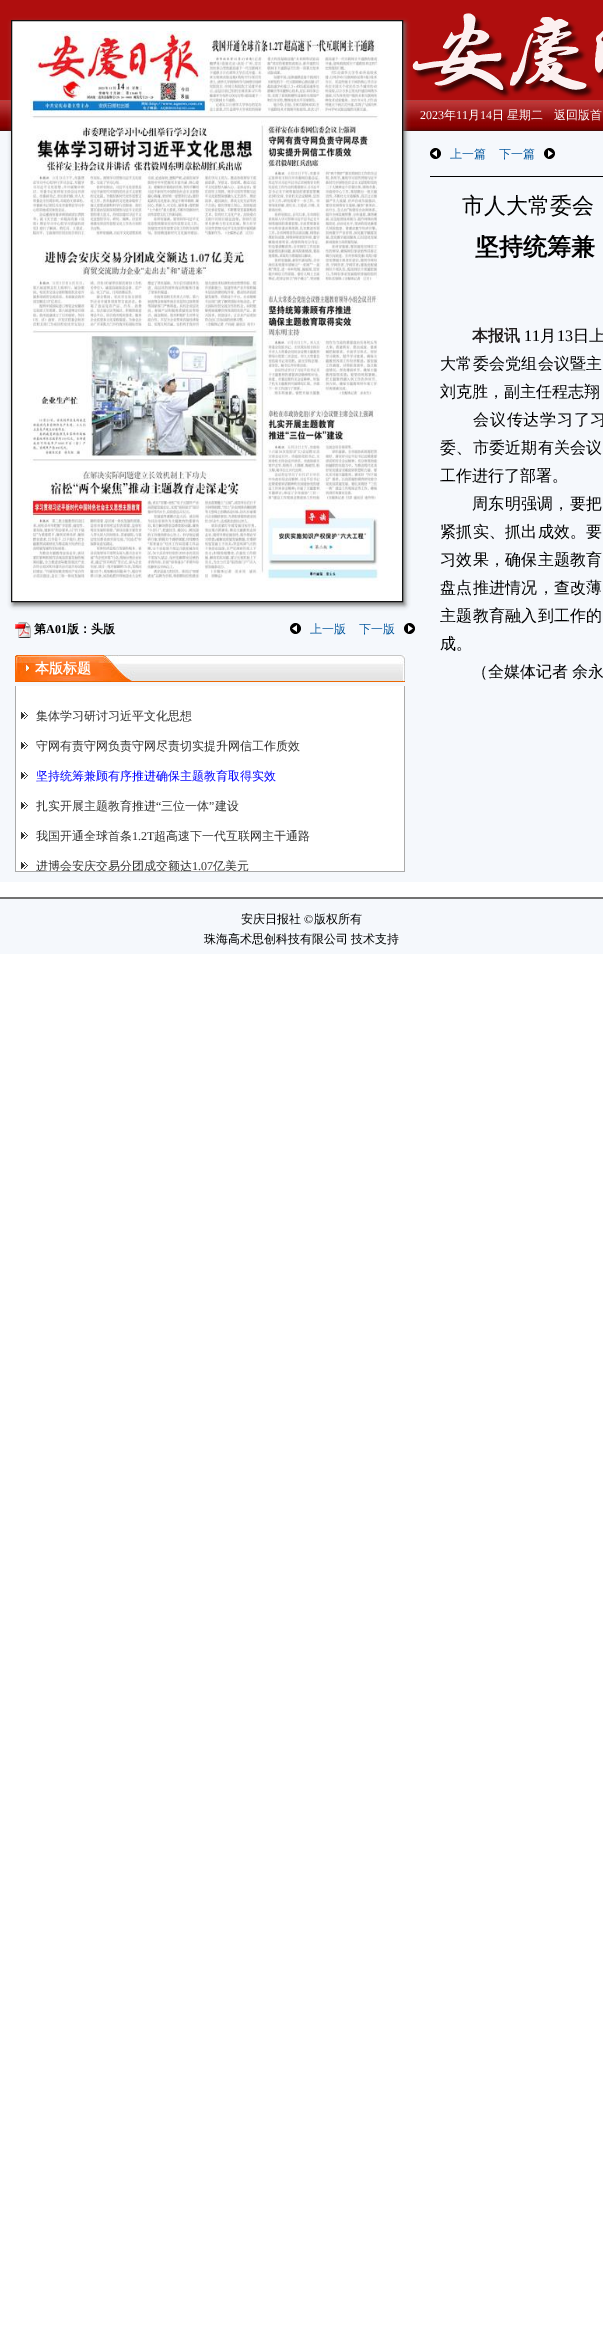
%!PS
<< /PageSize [603 2331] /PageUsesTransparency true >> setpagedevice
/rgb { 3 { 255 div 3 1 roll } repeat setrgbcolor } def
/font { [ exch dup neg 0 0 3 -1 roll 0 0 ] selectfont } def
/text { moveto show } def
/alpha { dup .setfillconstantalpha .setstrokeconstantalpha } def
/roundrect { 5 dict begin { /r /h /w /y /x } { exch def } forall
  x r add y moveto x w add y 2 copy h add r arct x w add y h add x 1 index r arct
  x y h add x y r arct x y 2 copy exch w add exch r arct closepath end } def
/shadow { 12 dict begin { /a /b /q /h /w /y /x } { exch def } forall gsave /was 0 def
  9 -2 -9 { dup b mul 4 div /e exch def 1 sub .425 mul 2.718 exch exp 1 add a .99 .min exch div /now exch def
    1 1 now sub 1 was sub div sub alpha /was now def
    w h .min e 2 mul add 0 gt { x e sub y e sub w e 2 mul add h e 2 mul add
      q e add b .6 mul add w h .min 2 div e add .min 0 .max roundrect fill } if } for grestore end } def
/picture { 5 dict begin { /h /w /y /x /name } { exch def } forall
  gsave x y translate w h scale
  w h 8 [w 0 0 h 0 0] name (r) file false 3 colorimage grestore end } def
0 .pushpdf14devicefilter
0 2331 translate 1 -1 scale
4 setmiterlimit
255 255 255 rgb
0 0 603 2331 rectfill
245 248 252 rgb
0 131 603 751 rectfill
175 14 14 rgb
0 0 603 100 rectfill
(img_01.rgb) 412 13 191 85 picture
(img_03.rgb) 0 100 603 31 picture
113 113 113 rgb
13 23 392 582 0 2.5 1 shadow
255 255 255 rgb
11.5 20.5 moveto 391 0 rlineto 0 581 rlineto -391 0 rlineto closepath gsave fill grestore
17 17 17 rgb
stroke
(img_02.rgb) 30 31 349 550 picture
(img_04.rgb) 15 622 16 16 picture
(img_05.rgb) 290 623 11 11 picture
(img_06.rgb) 404 623 11 11 picture
0 0 0 rgb
430 176 173 1 rectfill
(img_05.rgb) 430 148 11 11 picture
(img_06.rgb) 544 148 11 11 picture
(img_07.rgb) 15 655 390 27 picture
255 255 255 rgb
16 686 388 185 rectfill
170 170 170 rgb
404 686 1 186 rectfill
15 871 390 1 rectfill
15 686 1 186 rectfill
(img_08.rgb) 21 712 7 7 picture
(img_08.rgb) 21 742 7 7 picture
(img_08.rgb) 21 772 7 7 picture
(img_08.rgb) 21 802 7 7 picture
(img_08.rgb) 21 832 7 7 picture
(img_08.rgb) 21 862 7 7 picture
245 248 252 rgb
0 899 603 55 rectfill
114 114 114 rgb
0 897 603 2 rectfill
/LiberationSerif-Regular 12 font
255 255 255 rgb
(2023) 420 119 text
/WenQuanYiZenHei-Medium 12 font
(年) 444 119 text
/LiberationSerif-Regular 12 font
(11) 456 119 text
/WenQuanYiZenHei-Medium 12 font
(月) 468 119 text
/LiberationSerif-Regular 12 font
(14) 480 119 text
/WenQuanYiZenHei-Medium 12 font
492 119 moveto -1 0 32 (日 星期二) widthshow
(返回版首) 554 119 text
/WenQuanYiZenHei-Bold 12 font
0 0 0 rgb
(第) 34 633 text
/LiberationSerif-Bold 12 font
(A01) 46 633 text
/WenQuanYiZenHei-Bold 12 font
(版：头版) 67 633 text
/WenQuanYiZenHei-Medium 12 font
0 85 156 rgb
(上一版) 310 633 text
(下一版) 359 633 text
(上一篇) 450 158 text
(下一篇) 499 158 text
/WenQuanYiZenHei-Medium 22 font
0 0 0 rgb
(市人大常委会) 462 213 text
/WenQuanYiZenHei-Bold 24 font
(坚持统筹兼) 475 255 text
/WenQuanYiZenHei-Bold 16 font
35 31 31 rgb
(本报讯) 472 341 text
/LiberationSerif-Regular 16 font
0 0 0 rgb
(11) 524 341 text
/WenQuanYiZenHei-Medium 16 font
(月) 540 341 text
/LiberationSerif-Regular 16 font
(13) 557 341 text
/WenQuanYiZenHei-Medium 16 font
(日上) 573 341 text
440 369 moveto 0.25 0 (大常委会党组会议暨主) ashow
(刘克胜，副主任程志翔) 440 397 text
473 425 moveto 0.75 0 (会议传达学习了习) ashow
440 453 moveto 0.25 0 (委、市委近期有关会议) ashow
(工作进行了部署。) 440 481 text
472 509 moveto 0.25 0 (周东明强调，要把) ashow
440 537 moveto 0.25 0 (紧抓实、抓出成效。要) ashow
440 565 moveto 0.25 0 (习效果，确保主题教育) ashow
440 593 moveto 0.25 0 (盘点推进情况，查改薄) ashow
440 621 moveto 0.25 0 (主题教育融入到工作的) ashow
(成。) 440 649 text
472 677 moveto -1 0 32 (（全媒体记者 余永) widthshow
/WenQuanYiZenHei-Bold 14 font
255 255 255 rgb
(本版标题) 35 673 text
/WenQuanYiZenHei-Medium 12 font
51 51 51 rgb
(集体学习研讨习近平文化思想) 36 720 text
(守网有责守网负责守网尽责切实提升网信工作质效) 36 750 text
0 0 255 rgb
(坚持统筹兼顾有序推进确保主题教育取得实效) 36 780 text
51 51 51 rgb
(扎实开展主题教育推进) 36 810 text
/LiberationSerif-Regular 12 font
(“) 156 810 text
/WenQuanYiZenHei-Medium 12 font
(三位一体) 161 810 text
/LiberationSerif-Regular 12 font
(”) 209 810 text
/WenQuanYiZenHei-Medium 12 font
(建设) 215 810 text
(我国开通全球首条) 36 840 text
/LiberationSerif-Regular 12 font
(1.2T) 132 840 text
/WenQuanYiZenHei-Medium 12 font
(超高速下一代互联网主干通路) 154 840 text
gsave
16 686 388 185 rectclip
(进博会安庆交易分团成交额达) 36 870 text
grestore
/LiberationSerif-Regular 12 font
(1.07) 192 870 text
gsave
16 686 388 185 rectclip
/WenQuanYiZenHei-Medium 12 font
(亿美元) 213 870 text
grestore
/WenQuanYiZenHei-Medium 12 font
0 0 0 rgb
(安庆日报社) 241 923 text
/LiberationSerif-Regular 12 font
(©) 304 923 text
/WenQuanYiZenHei-Medium 12 font
(版权所有) 314 923 text
(珠海高术思创科技有限公司) 204 943 text
(技术支持) 351 943 text
.poppdf14devicefilter showpage
